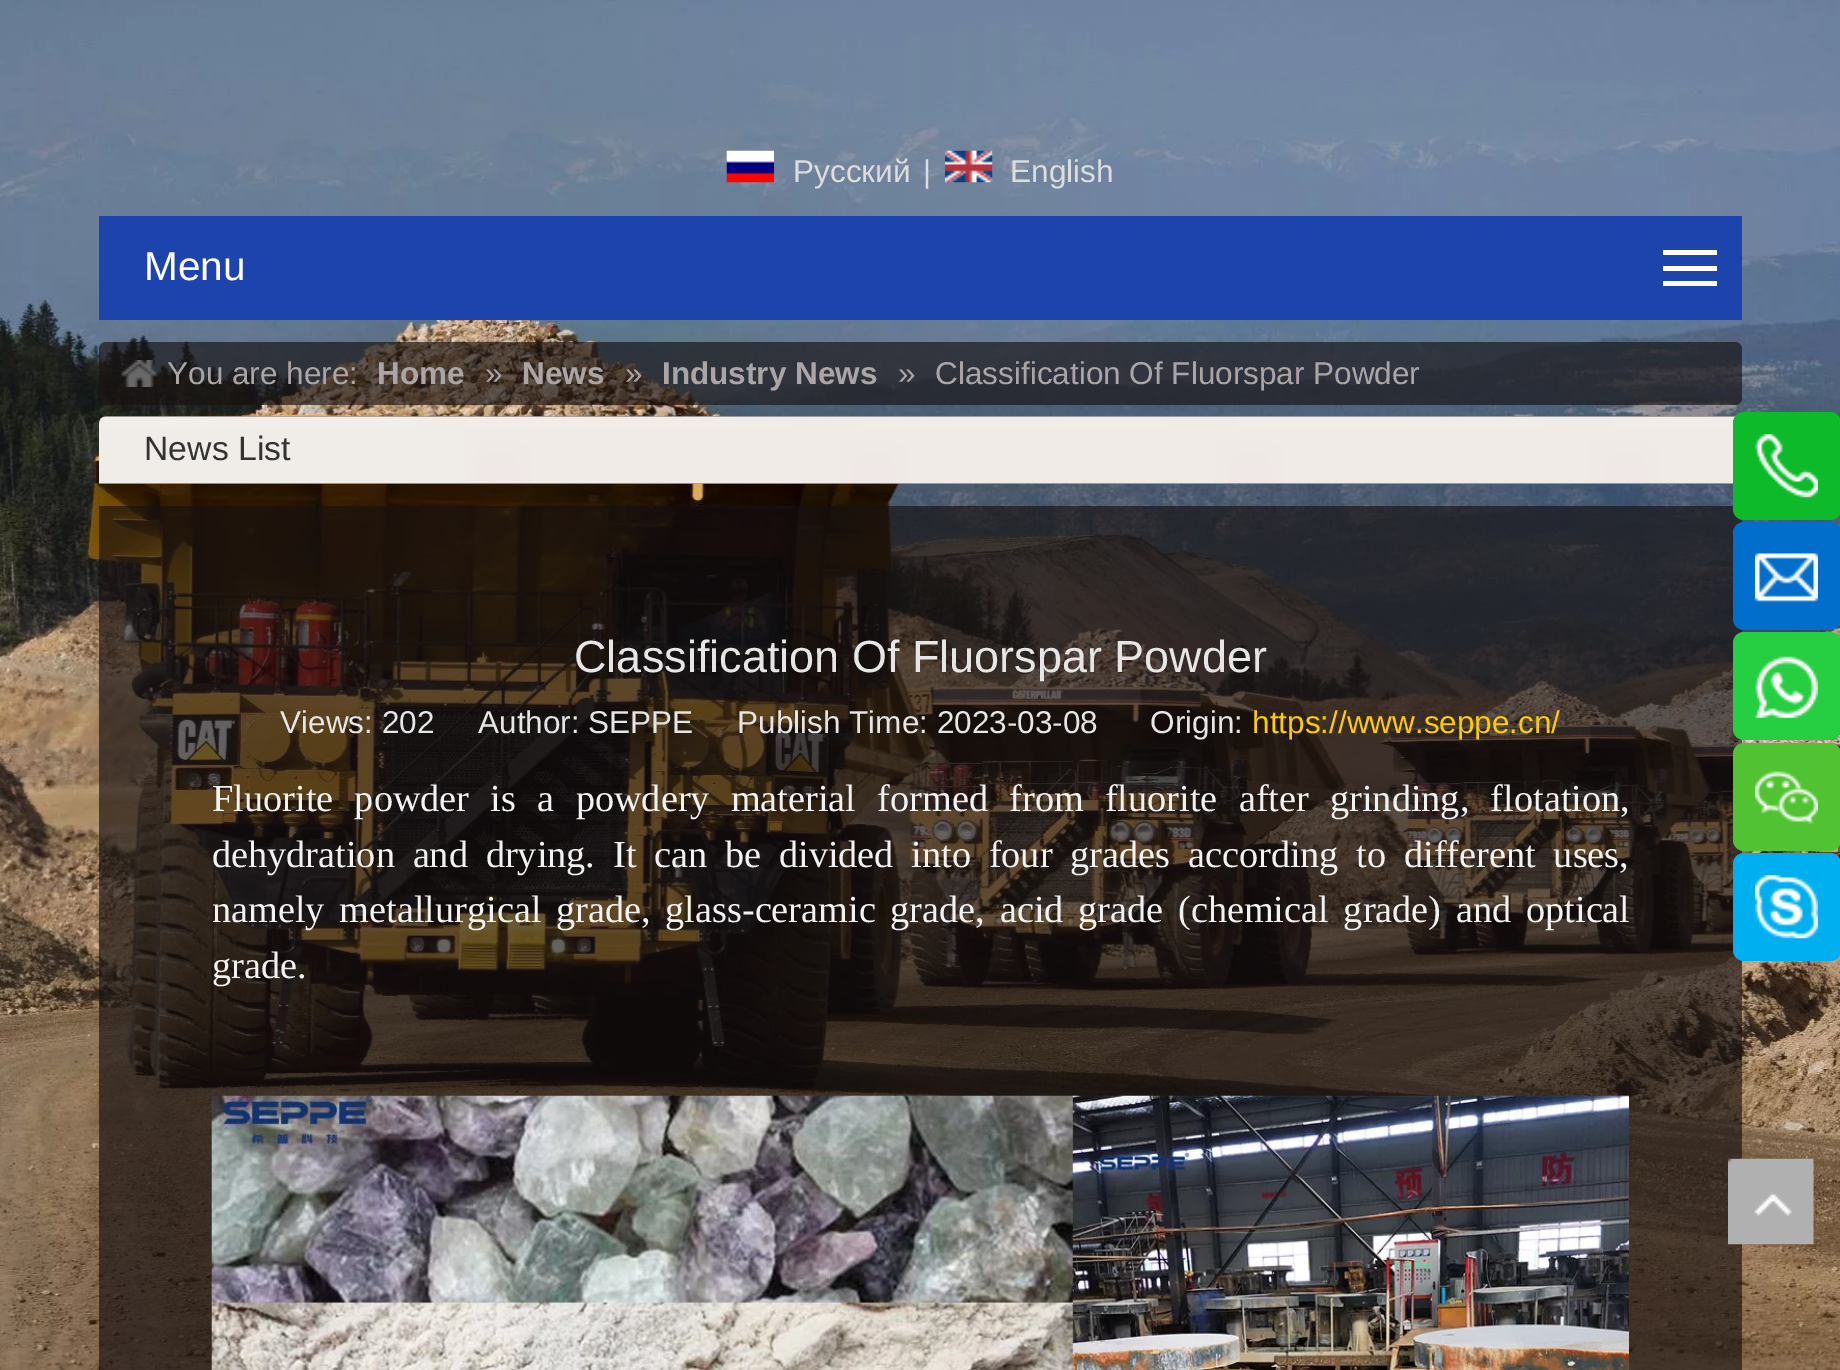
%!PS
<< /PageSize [1840 1370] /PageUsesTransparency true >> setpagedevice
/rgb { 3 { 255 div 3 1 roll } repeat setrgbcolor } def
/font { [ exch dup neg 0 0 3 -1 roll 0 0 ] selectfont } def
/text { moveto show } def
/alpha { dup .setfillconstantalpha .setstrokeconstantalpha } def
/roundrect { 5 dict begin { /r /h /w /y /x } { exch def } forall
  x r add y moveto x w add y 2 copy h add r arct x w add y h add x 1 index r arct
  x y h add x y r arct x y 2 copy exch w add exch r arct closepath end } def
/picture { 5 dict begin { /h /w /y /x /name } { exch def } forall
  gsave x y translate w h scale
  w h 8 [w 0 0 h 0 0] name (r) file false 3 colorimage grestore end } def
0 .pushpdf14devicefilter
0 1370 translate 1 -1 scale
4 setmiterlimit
255 255 255 rgb
0 0 1840 1370 rectfill
(img_01.rgb) 0 0 1840 1370 picture
(img_02.rgb) 726 150 48 33 picture
(img_03.rgb) 945 150 48 33 picture
28 68 172 rgb
99 216 1643 104 rectfill
255 255 255 rgb
1663 250 54 5 rectfill
1663 266 54 5 rectfill
1663 281 54 5 rectfill
0.65 alpha
22 16 16 rgb
99 342 1643 63 7 roundrect fill
1 alpha
(img_04.rgb) 121 360 37 27 picture
0.65 alpha
99 416 1637 68 rectfill
1 alpha
(img_05.rgb) 99 416 1637 68 picture
0.65 alpha
99 506 1643 864 rectfill
1 alpha
(img_06.rgb) 211 1095 1418 275 picture
13 186 42 rgb
1733 412 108 108 11 roundrect fill
(img_07.rgb) 1755 434 63 64 picture
1 110 203 rgb
1733 522 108 108 11 roundrect fill
(img_08.rgb) 1755 553 63 49 picture
38 207 65 rgb
1733 632 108 108 11 roundrect fill
(img_09.rgb) 1755 656 63 62 picture
81 195 50 rgb
1733 743 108 108 11 roundrect fill
(img_10.rgb) 1755 771 63 53 picture
0 175 240 rgb
1733 853 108 108 11 roundrect fill
(img_11.rgb) 1755 875 63 64 picture
(img_12.rgb) 1728 1158 86 87 picture
/LiberationSans-Regular 31.5 font
221 221 221 rgb
(Pусский) 793 182 text
(|) 923 182 text
(English) 1010 182 text
/LiberationSans-Regular 40.5 font
255 255 255 rgb
(Menu) 144 280 text
/LiberationSans-Regular 31.5 font
172 165 165 rgb
(You are here:) 167 384 text
/LiberationSans-Bold 31.5 font
(Home) 377 384 text
/LiberationSans-Regular 31.5 font
(») 485 384 text
/LiberationSans-Bold 31.5 font
(News) 522 384 text
/LiberationSans-Regular 31.5 font
(») 625 384 text
/LiberationSans-Bold 31.5 font
(Industry News) 662 384 text
/LiberationSans-Regular 31.5 font
(») 898 384 text
(Classification Of Fluorspar Powder) 935 384 text
/LiberationSans-Regular 33.75 font
51 51 51 rgb
(News List) 144 460 text
/LiberationSans-Regular 45 font
230 230 230 rgb
(Classification Of Fluorspar Powder) 574 672 text
/LiberationSans-Regular 31.5 font
(Views: 202) 280 733 text
(Author: SEPPE     Publish Time: 2023-03-08      Origin:) 478 733 text
255 204 0 rgb
(https://www.seppe.cn/) 1252 733 text
/LiberationSerif-Regular 38.25 font
242 242 242 rgb
212 811 moveto 11.75 0 32 (Fluorite powder is a powdery material formed from fluorite after grinding, flotation,) widthshow
212 867 moveto 8.25 0 32 (dehydration and drying. It can be divided into four grades according to different uses,) widthshow
212 922 moveto 5.25 0 32 (namely metallurgical grade, glass-ceramic grade, acid grade \(chemical grade\) and optical) widthshow
(grade.) 212 978 text
.poppdf14devicefilter showpage
